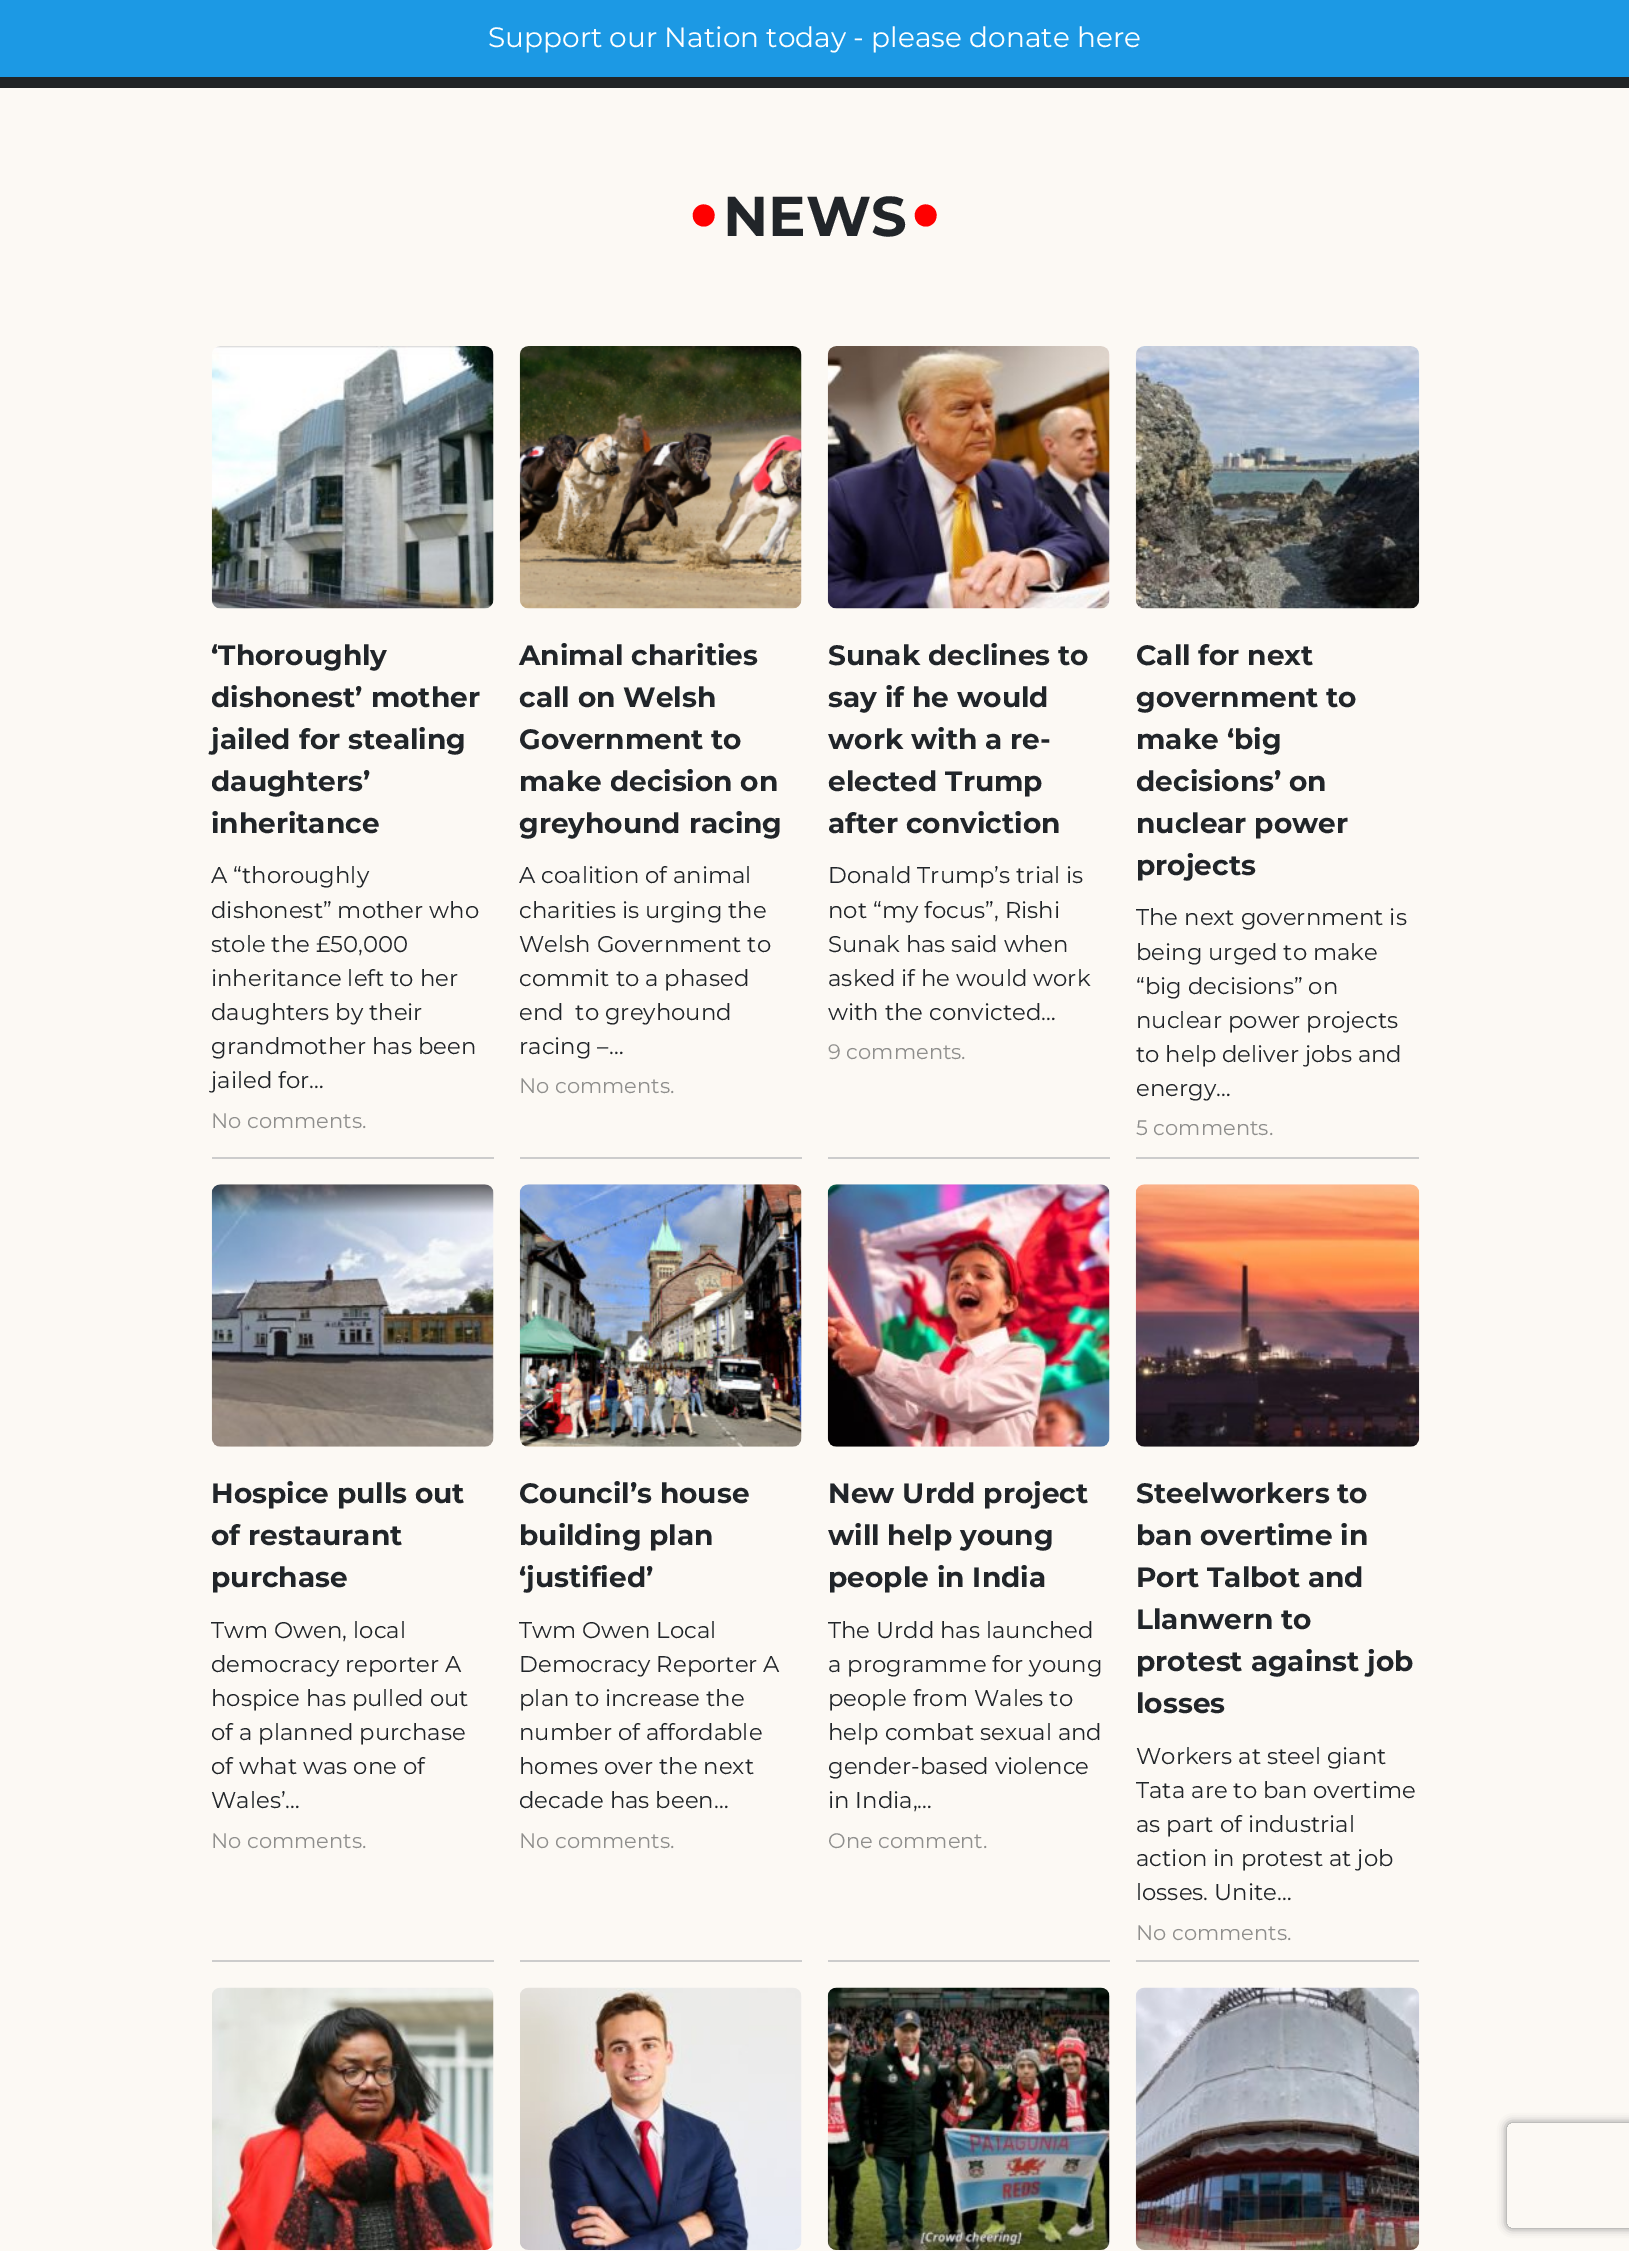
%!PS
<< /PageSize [1629 2251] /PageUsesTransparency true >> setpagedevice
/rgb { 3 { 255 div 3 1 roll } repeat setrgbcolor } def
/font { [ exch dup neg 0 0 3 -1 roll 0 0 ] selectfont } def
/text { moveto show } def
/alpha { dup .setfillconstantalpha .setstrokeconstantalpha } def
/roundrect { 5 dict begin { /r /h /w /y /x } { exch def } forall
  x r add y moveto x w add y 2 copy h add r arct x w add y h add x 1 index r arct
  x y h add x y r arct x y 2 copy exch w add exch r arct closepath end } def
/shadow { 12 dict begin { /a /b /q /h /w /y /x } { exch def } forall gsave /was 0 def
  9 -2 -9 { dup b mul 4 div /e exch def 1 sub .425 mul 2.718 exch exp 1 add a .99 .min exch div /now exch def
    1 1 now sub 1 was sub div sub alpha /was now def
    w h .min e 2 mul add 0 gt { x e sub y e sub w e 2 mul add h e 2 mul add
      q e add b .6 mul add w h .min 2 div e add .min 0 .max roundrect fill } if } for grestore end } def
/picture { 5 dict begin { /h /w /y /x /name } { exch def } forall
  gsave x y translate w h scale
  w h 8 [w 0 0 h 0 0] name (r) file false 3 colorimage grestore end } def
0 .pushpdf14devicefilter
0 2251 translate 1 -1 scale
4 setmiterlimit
252 249 244 rgb
0 0 1629 2251 rectfill
28 153 228 rgb
0 0 1629 77 rectfill
33 36 37 rgb
0 77 1629 11 rectfill
204 204 204 rgb
212 1157 282 2 rectfill
(img_01.rgb) 211 346 283 263 picture
520 1157 282 2 rectfill
(img_02.rgb) 519 346 283 263 picture
828 1157 282 2 rectfill
(img_03.rgb) 827 346 283 263 picture
1136 1157 283 2 rectfill
(img_04.rgb) 1135 346 285 263 picture
212 1960 282 2 rectfill
(img_05.rgb) 211 1184 283 263 picture
520 1960 282 2 rectfill
(img_06.rgb) 519 1184 283 263 picture
828 1960 282 2 rectfill
(img_07.rgb) 827 1184 283 263 picture
1136 1960 283 2 rectfill
(img_08.rgb) 1135 1184 285 263 picture
(img_09.rgb) 212 1987 282 263 picture
(img_10.rgb) 520 1987 282 263 picture
(img_11.rgb) 827 1987 283 263 picture
(img_12.rgb) 1135 1987 285 263 picture
gsave
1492 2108 moveto 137 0 rlineto 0 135 rlineto -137 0 rlineto closepath 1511 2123 moveto 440 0 rlineto 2 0 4 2 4 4 rcurveto 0 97 rlineto 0 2 -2 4 -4 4 rcurveto -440 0 rlineto -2 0 -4 -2 -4 -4 rcurveto 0 -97 rlineto 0 -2 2 -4 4 -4 rcurveto closepath eoclip newpath
128 128 128 rgb
1507 2123 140 105 4 4.5 1 shadow
grestore
/Montserrat-Regular 28 font
255 255 255 rgb
(Support our Nation today - please donate here) 488 47 text
/Montserrat-Bold 88 font
255 0 0 rgb
(•) 688 240 text
/Montserrat-Bold 56 font
33 37 41 rgb
(NEWS) 723 236 text
/Montserrat-Bold 88 font
255 0 0 rgb
(•) 910 240 text
/Montserrat-Bold 28 font
33 37 41 rgb
(‘Thoroughly) 211 665 text
(dishonest’ mother) 211 707 text
(jailed for stealing) 211 749 text
(daughters’) 211 791 text
(inheritance) 211 833 text
/Montserrat-Regular 22.75 font
(A “thoroughly) 211 883 text
(dishonest” mother who) 211 918 text
(stole the £50,000) 211 952 text
(inheritance left to her) 211 986 text
(daughters by their) 211 1020 text
(grandmother has been) 211 1054 text
(jailed for…) 211 1088 text
/Montserrat-Regular 21 font
143 143 141 rgb
(No comments.) 211 1128 text
/Montserrat-Bold 28 font
33 37 41 rgb
(Animal charities) 519 665 text
(call on Welsh) 519 707 text
(Government to) 519 749 text
(make decision on) 519 791 text
(greyhound racing) 519 833 text
/Montserrat-Regular 22.75 font
(A coalition of animal) 519 883 text
(charities is urging the) 519 918 text
(Welsh Government to) 519 952 text
(commit to a phased) 519 986 text
(end  to greyhound) 519 1020 text
(racing –…) 519 1054 text
/Montserrat-Regular 21 font
143 143 141 rgb
(No comments.) 519 1093 text
/Montserrat-Bold 28 font
33 37 41 rgb
(Sunak declines to) 828 665 text
(say if he would) 828 707 text
(work with a re-) 828 749 text
(elected Trump) 828 791 text
(after conviction) 828 833 text
/Montserrat-Regular 22.75 font
(Donald Trump’s trial is) 828 883 text
(not “my focus”, Rishi) 828 918 text
(Sunak has said when) 828 952 text
(asked if he would work) 828 986 text
(with the convicted…) 828 1020 text
/Montserrat-Regular 21 font
143 143 141 rgb
(9 comments.) 828 1059 text
/Montserrat-Bold 28 font
33 37 41 rgb
(Call for next) 1136 665 text
(government to) 1136 707 text
(make ‘big) 1136 749 text
(decisions’ on) 1136 791 text
(nuclear power) 1136 833 text
(projects) 1136 875 text
/Montserrat-Regular 22.75 font
(The next government is) 1136 925 text
(being urged to make) 1136 960 text
(“big decisions” on) 1136 994 text
(nuclear power projects) 1136 1028 text
(to help deliver jobs and) 1136 1062 text
(energy…) 1136 1096 text
/Montserrat-Regular 21 font
143 143 141 rgb
(5 comments.) 1136 1135 text
/Montserrat-Bold 28 font
33 37 41 rgb
(Hospice pulls out) 211 1503 text
(of restaurant) 211 1545 text
(purchase) 211 1587 text
/Montserrat-Regular 22.75 font
(Twm Owen, local) 211 1638 text
(democracy reporter A) 211 1672 text
(hospice has pulled out) 211 1706 text
(of a planned purchase) 211 1740 text
(of what was one of) 211 1774 text
(Wales’…) 211 1808 text
/Montserrat-Regular 21 font
143 143 141 rgb
(No comments.) 211 1848 text
/Montserrat-Bold 28 font
33 37 41 rgb
(Council’s house) 519 1503 text
(building plan) 519 1545 text
(‘justified’) 519 1587 text
/Montserrat-Regular 22.75 font
(Twm Owen Local) 519 1638 text
(Democracy Reporter A) 519 1672 text
(plan to increase the) 519 1706 text
(number of affordable) 519 1740 text
(homes over the next) 519 1774 text
(decade has been…) 519 1808 text
/Montserrat-Regular 21 font
143 143 141 rgb
(No comments.) 519 1848 text
/Montserrat-Bold 28 font
33 37 41 rgb
(New Urdd project) 828 1503 text
(will help young) 828 1545 text
(people in India) 828 1587 text
/Montserrat-Regular 22.75 font
(The Urdd has launched) 828 1638 text
(a programme for young) 828 1672 text
(people from Wales to) 828 1706 text
(help combat sexual and) 828 1740 text
(gender-based violence) 828 1774 text
(in India,…) 828 1808 text
/Montserrat-Regular 21 font
143 143 141 rgb
(One comment.) 828 1848 text
/Montserrat-Bold 28 font
33 37 41 rgb
(Steelworkers to) 1136 1503 text
(ban overtime in) 1136 1545 text
(Port Talbot and) 1136 1587 text
(Llanwern to) 1136 1629 text
(protest against job) 1136 1671 text
(losses) 1136 1713 text
/Montserrat-Regular 22.75 font
(Workers at steel giant) 1136 1764 text
(Tata are to ban overtime) 1136 1798 text
(as part of industrial) 1136 1832 text
(action in protest at job) 1136 1866 text
(losses. Unite…) 1136 1900 text
/Montserrat-Regular 21 font
143 143 141 rgb
(No comments.) 1136 1940 text
.poppdf14devicefilter showpage
